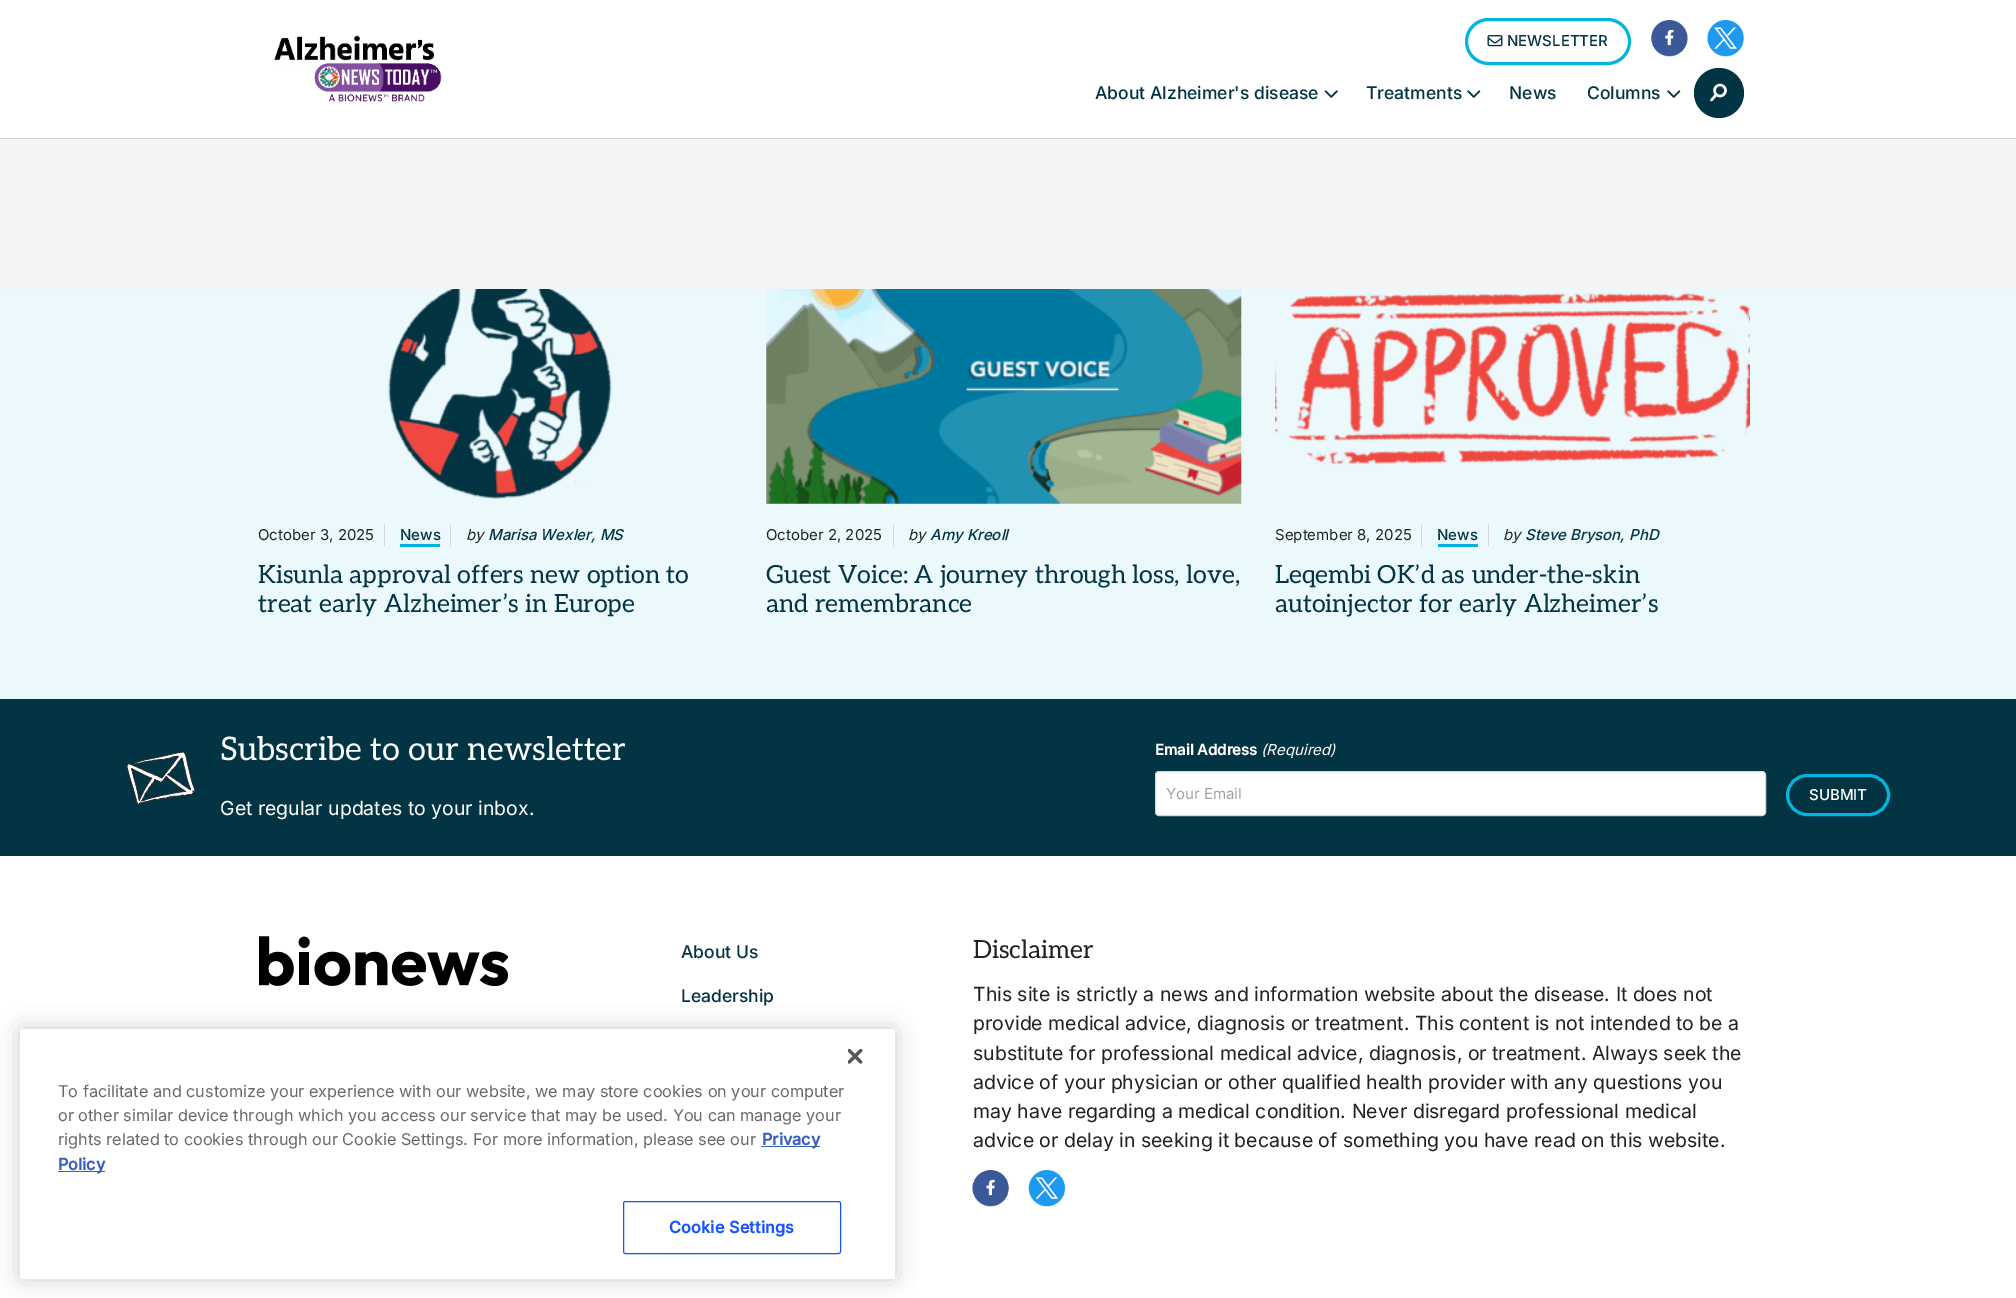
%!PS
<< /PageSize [2016 1298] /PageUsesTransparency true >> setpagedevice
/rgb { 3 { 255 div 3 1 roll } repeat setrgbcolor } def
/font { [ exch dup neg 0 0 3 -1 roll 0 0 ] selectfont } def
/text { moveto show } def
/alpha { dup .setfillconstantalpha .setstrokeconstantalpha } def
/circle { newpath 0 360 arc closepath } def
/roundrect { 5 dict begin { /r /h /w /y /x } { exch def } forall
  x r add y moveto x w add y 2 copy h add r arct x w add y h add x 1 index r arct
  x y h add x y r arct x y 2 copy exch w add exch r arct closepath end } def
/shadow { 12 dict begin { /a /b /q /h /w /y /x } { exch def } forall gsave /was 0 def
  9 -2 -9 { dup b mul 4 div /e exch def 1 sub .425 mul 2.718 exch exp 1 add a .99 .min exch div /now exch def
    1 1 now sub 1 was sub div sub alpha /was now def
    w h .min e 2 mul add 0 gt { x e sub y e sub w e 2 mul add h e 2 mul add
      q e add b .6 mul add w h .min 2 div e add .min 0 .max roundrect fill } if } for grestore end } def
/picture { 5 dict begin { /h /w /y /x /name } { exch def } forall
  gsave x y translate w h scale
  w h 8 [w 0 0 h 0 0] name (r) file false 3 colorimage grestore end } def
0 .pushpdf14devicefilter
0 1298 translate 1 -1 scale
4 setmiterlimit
255 255 255 rgb
0 0 2016 1298 rectfill
215 215 215 rgb
0 138 2016 1 rectfill
(img_01.rgb) 274 35 168 67 picture
5 180 221 rgb
3 setlinewidth
1466.5 19.5 163 44 22 roundrect stroke
(img_02.rgb) 1487 35 16 12 picture
(img_03.rgb) 1651 20 37 37 picture
(img_04.rgb) 1707 20 37 37 picture
(img_05.rgb) 1324 90 14 8 picture
(img_06.rgb) 1467 90 14 8 picture
(img_06.rgb) 1667 90 14 8 picture
3 52 67 rgb
1719 93 25 circle fill
255 255 255 rgb
2.4 setlinewidth
1720 90.5 5.5 circle stroke
1 setlinecap
1715.5 95.5 moveto -4 4.5 rlineto stroke
243 244 246 rgb
0 139 2016 150 rectfill
235 248 252 rgb
0 289 2016 410 rectfill
(img_07.rgb) 388 289 224 210 picture
215 215 215 rgb
384 524 1 22 rectfill
450 524 1 22 rectfill
5 180 221 rgb
400 544 40 3 rectfill
(img_08.rgb) 766 289 476 215 picture
215 215 215 rgb
893 524 1 22 rectfill
(img_09.rgb) 1275 292 475 173 picture
1421 524 1 22 rectfill
1488 524 1 22 rectfill
5 180 221 rgb
1438 544 40 3 rectfill
3 52 67 rgb
0 699 2016 157 rectfill
(img_10.rgb) 126 751 69 54 picture
255 255 255 rgb
1155.5 771.5 610 44 3.5 roundrect gsave fill grestore
215 215 215 rgb
1 setlinewidth
0 setlinecap
stroke
5 180 221 rgb
3 setlinewidth
1787.5 775.5 101 39 19.5 roundrect stroke
0 0 0 rgb
20 1029 875 250 3 11 0.2 shadow
255 255 255 rgb
20 1029 875 250 3 roundrect fill
(img_11.rgb) 848 1049 15 15 picture
56 96 190 rgb
761 1146 59 1 rectfill
58 1171 47 1 rectfill
23 84 255 rgb
1 setlinewidth
623.5 1201.5 217 52 2 roundrect stroke
(img_12.rgb) 259 936 249 50 picture
(img_13.rgb) 972 1170 37 37 picture
(img_14.rgb) 1028 1170 37 37 picture
/Inter-Medium 15 font
3 52 67 rgb
(NEWSLETTER) 1507 46 text
/Inter-Medium 17.5 font
(About Alzheimer's disease) 1095 99 text
(Treatments) 1366 99 text
(News) 1509 99 text
(Columns) 1587 99 text
/Inter-Regular 15 font
33 33 33 rgb
(October 3, 2025) 258 540 text
/Inter-Medium 15 font
3 52 67 rgb
(News) 400 540 text
/Inter-Italic 15 font
33 33 33 rgb
(by) 466 540 text
/Inter-MediumItalic 15 font
3 52 67 rgb
(Marisa Wexler, MS) 488 540 text
/Aleo-Regular 25 font
(Kisunla approval offers new option to) 258 583 text
(treat early Alzheimer’s in Europe) 258 612 text
/Inter-Regular 15 font
33 33 33 rgb
(October 2, 2025) 766 540 text
/Inter-Italic 15 font
(by) 908 540 text
/Inter-MediumItalic 15 font
3 52 67 rgb
(Amy Kreoll) 930 540 text
/Aleo-Regular 25 font
(Guest Voice: A journey through loss, love,) 766 583 text
(and remembrance) 766 612 text
/Inter-Regular 15 font
33 33 33 rgb
(September 8, 2025) 1275 540 text
/Inter-Medium 15 font
3 52 67 rgb
(News) 1437 540 text
/Inter-Italic 15 font
33 33 33 rgb
(by) 1503 540 text
/Inter-MediumItalic 15 font
3 52 67 rgb
(Steve Bryson, PhD) 1525 540 text
/Aleo-Regular 25 font
(Leqembi OK’d as under-the-skin) 1275 583 text
(autoinjector for early Alzheimer’s) 1275 612 text
/Aleo-Regular 32.5 font
255 255 255 rgb
(Subscribe to our newsletter) 220 760 text
/Inter-Regular 19.45 font
(Get regular updates to your inbox.) 220 815 text
/Inter-Bold 15 font
(Email Address) 1155 755 text
/Inter-Italic 15 font
(\(Required\)) 1261 755 text
/Inter-Regular 15 font
163 163 163 rgb
(Your Email) 1166 799 text
/Inter-Medium 15 font
255 255 255 rgb
(SUBMIT) 1809 800 text
/Inter-Regular 16.25 font
105 105 105 rgb
(To facilitate and customize your experience with our website, we may store cookies on your computer) 58 1097 text
(or other similar device through which you access our service that may be used. You can manage your) 58 1121 text
(rights related to cookies through our Cookie Settings. For more information, please see our) 58 1145 text
/Inter-Bold 16.25 font
56 96 190 rgb
(Privacy) 762 1145 text
(Policy) 58 1170 text
23 84 255 rgb
669 1233 moveto 0.2 0 (Cookie Settings) ashow
/Inter-Medium 17.5 font
3 52 67 rgb
(About Us) 681 958 text
(Leadership) 681 1002 text
/Aleo-Regular 25 font
33 33 33 rgb
(Disclaimer) 973 958 text
/Inter-Regular 19.45 font
(This site is strictly a news and information website about the disease. It does not) 973 1001 text
(provide medical advice, diagnosis or treatment. This content is not intended to be a) 973 1030 text
(substitute for professional medical advice, diagnosis, or treatment. Always seek the) 973 1060 text
(advice of your physician or other qualified health provider with any questions you) 973 1089 text
(may have regarding a medical condition. Never disregard professional medical) 973 1118 text
(advice or delay in seeking it because of something you have read on this website.) 973 1147 text
.poppdf14devicefilter showpage
